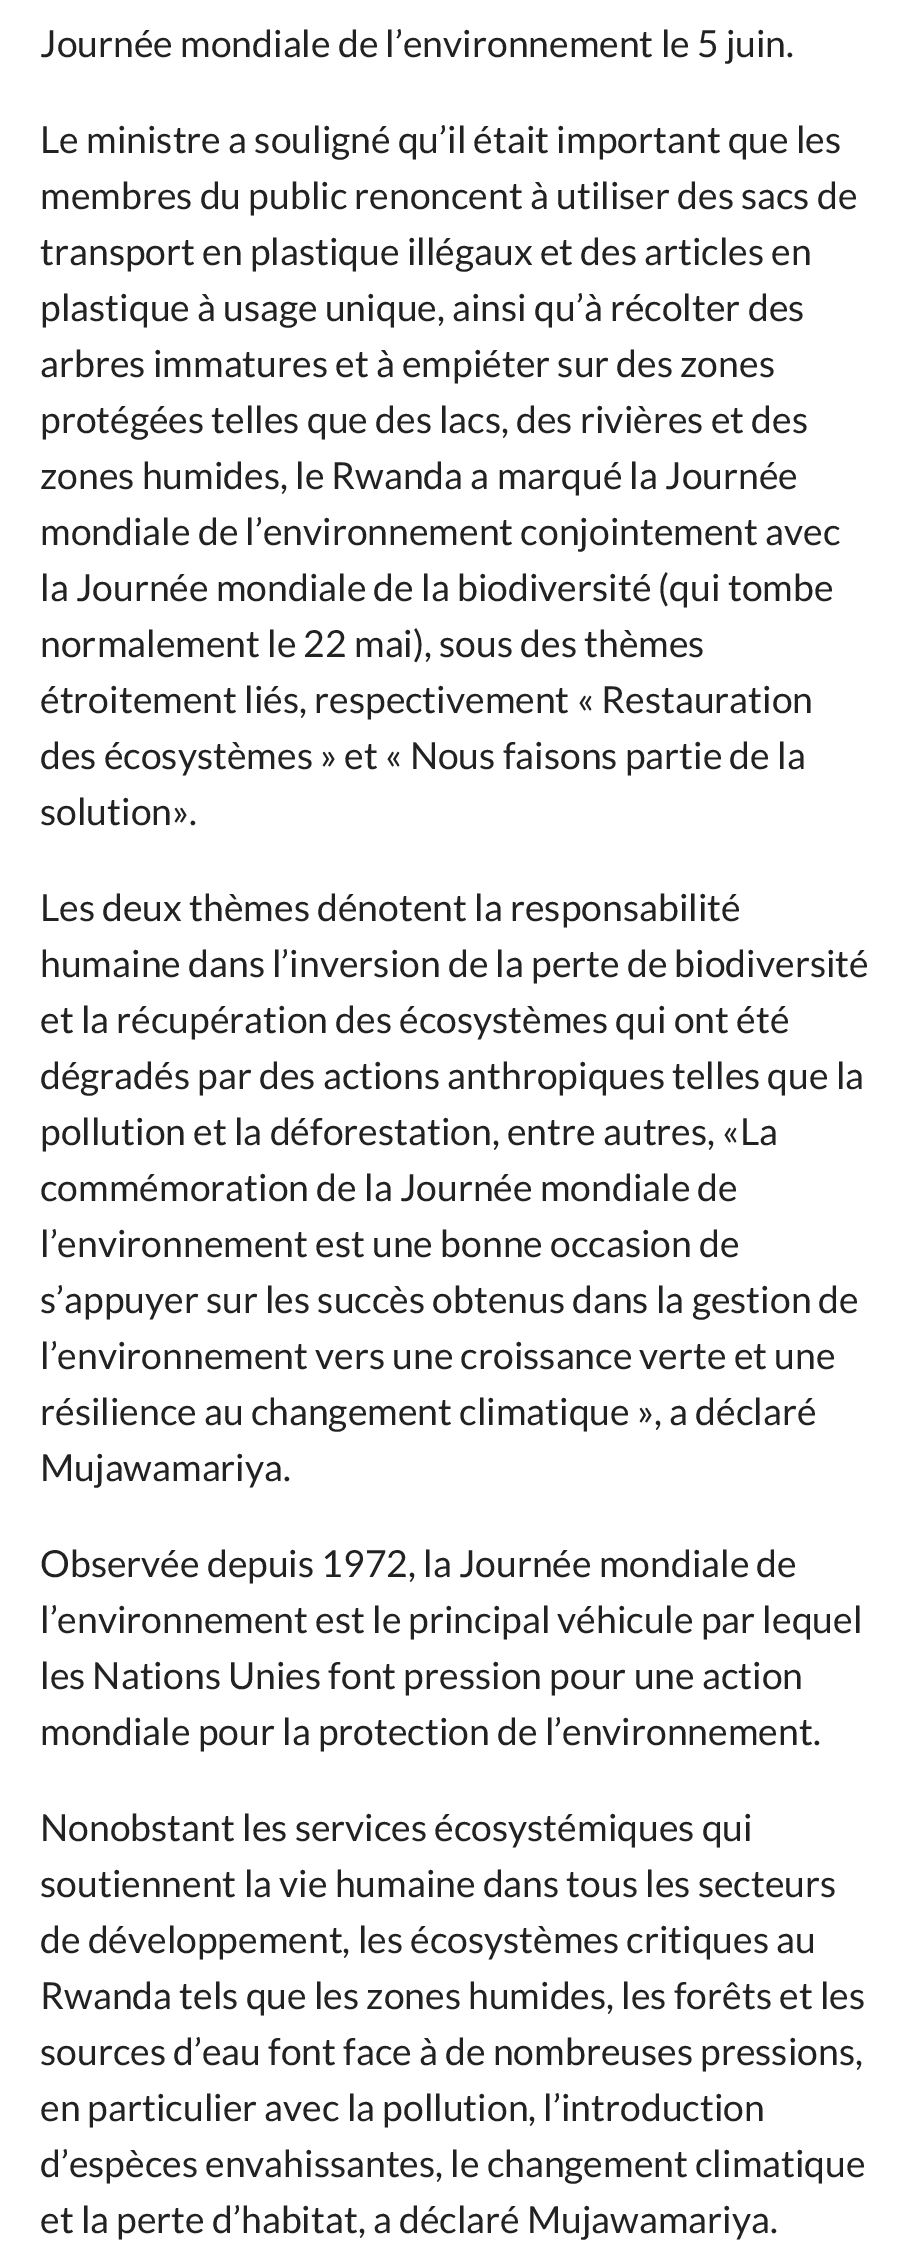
%!PS
<< /PageSize [913 2249] >> setpagedevice
/rgb { 3 { 255 div 3 1 roll } repeat setrgbcolor } def
/font { [ exch dup neg 0 0 3 -1 roll 0 0 ] selectfont } def
/text { moveto show } def
0 2249 translate 1 -1 scale
4 setmiterlimit
255 255 255 rgb
0 0 913 2249 rectfill
/Lato-Regular 37.3 font
34 34 34 rgb
(Journée mondiale de l’environnement le 5 juin.) 40 57 text
(Le ministre a souligné qu’il était important que les) 40 153 text
(membres du public renoncent à utiliser des sacs de) 40 209 text
(transport en plastique illégaux et des articles en) 40 265 text
(plastique à usage unique, ainsi qu’à récolter des) 40 321 text
(arbres immatures et à empiéter sur des zones) 40 377 text
(protégées telles que des lacs, des rivières et des) 40 433 text
(zones humides, le Rwanda a marqué la Journée) 40 489 text
(mondiale de l’environnement conjointement avec) 40 545 text
(la Journée mondiale de la biodiversité \(qui tombe) 40 601 text
(normalement le 22 mai\), sous des thèmes) 40 657 text
(étroitement liés, respectivement « Restauration) 40 713 text
(des écosystèmes » et « Nous faisons partie de la) 40 769 text
(solution».) 40 825 text
(Les deux thèmes dénotent la responsabilité) 40 921 text
(humaine dans l’inversion de la perte de biodiversité) 40 977 text
(et la récupération des écosystèmes qui ont été) 40 1033 text
(dégradés par des actions anthropiques telles que la) 40 1089 text
(pollution et la déforestation, entre autres, «La) 40 1145 text
(commémoration de la Journée mondiale de) 40 1201 text
(l’environnement est une bonne occasion de) 40 1257 text
(s’appuyer sur les succès obtenus dans la gestion de) 40 1313 text
(l’environnement vers une croissance verte et une) 40 1369 text
(résilience au changement climatique », a déclaré) 40 1425 text
(Mujawamariya.) 40 1481 text
(Observée depuis 1972, la Journée mondiale de) 40 1577 text
(l’environnement est le principal véhicule par lequel) 40 1633 text
(les Nations Unies font pression pour une action) 40 1689 text
(mondiale pour la protection de l’environnement.) 40 1745 text
(Nonobstant les services écosystémiques qui) 40 1841 text
(soutiennent la vie humaine dans tous les secteurs) 40 1897 text
(de développement, les écosystèmes critiques au) 40 1953 text
(Rwanda tels que les zones humides, les forêts et les) 40 2009 text
(sources d’eau font face à de nombreuses pressions,) 40 2065 text
(en particulier avec la pollution, l’introduction) 40 2121 text
(d’espèces envahissantes, le changement climatique) 40 2177 text
(et la perte d’habitat, a déclaré Mujawamariya.) 40 2233 text
showpage
